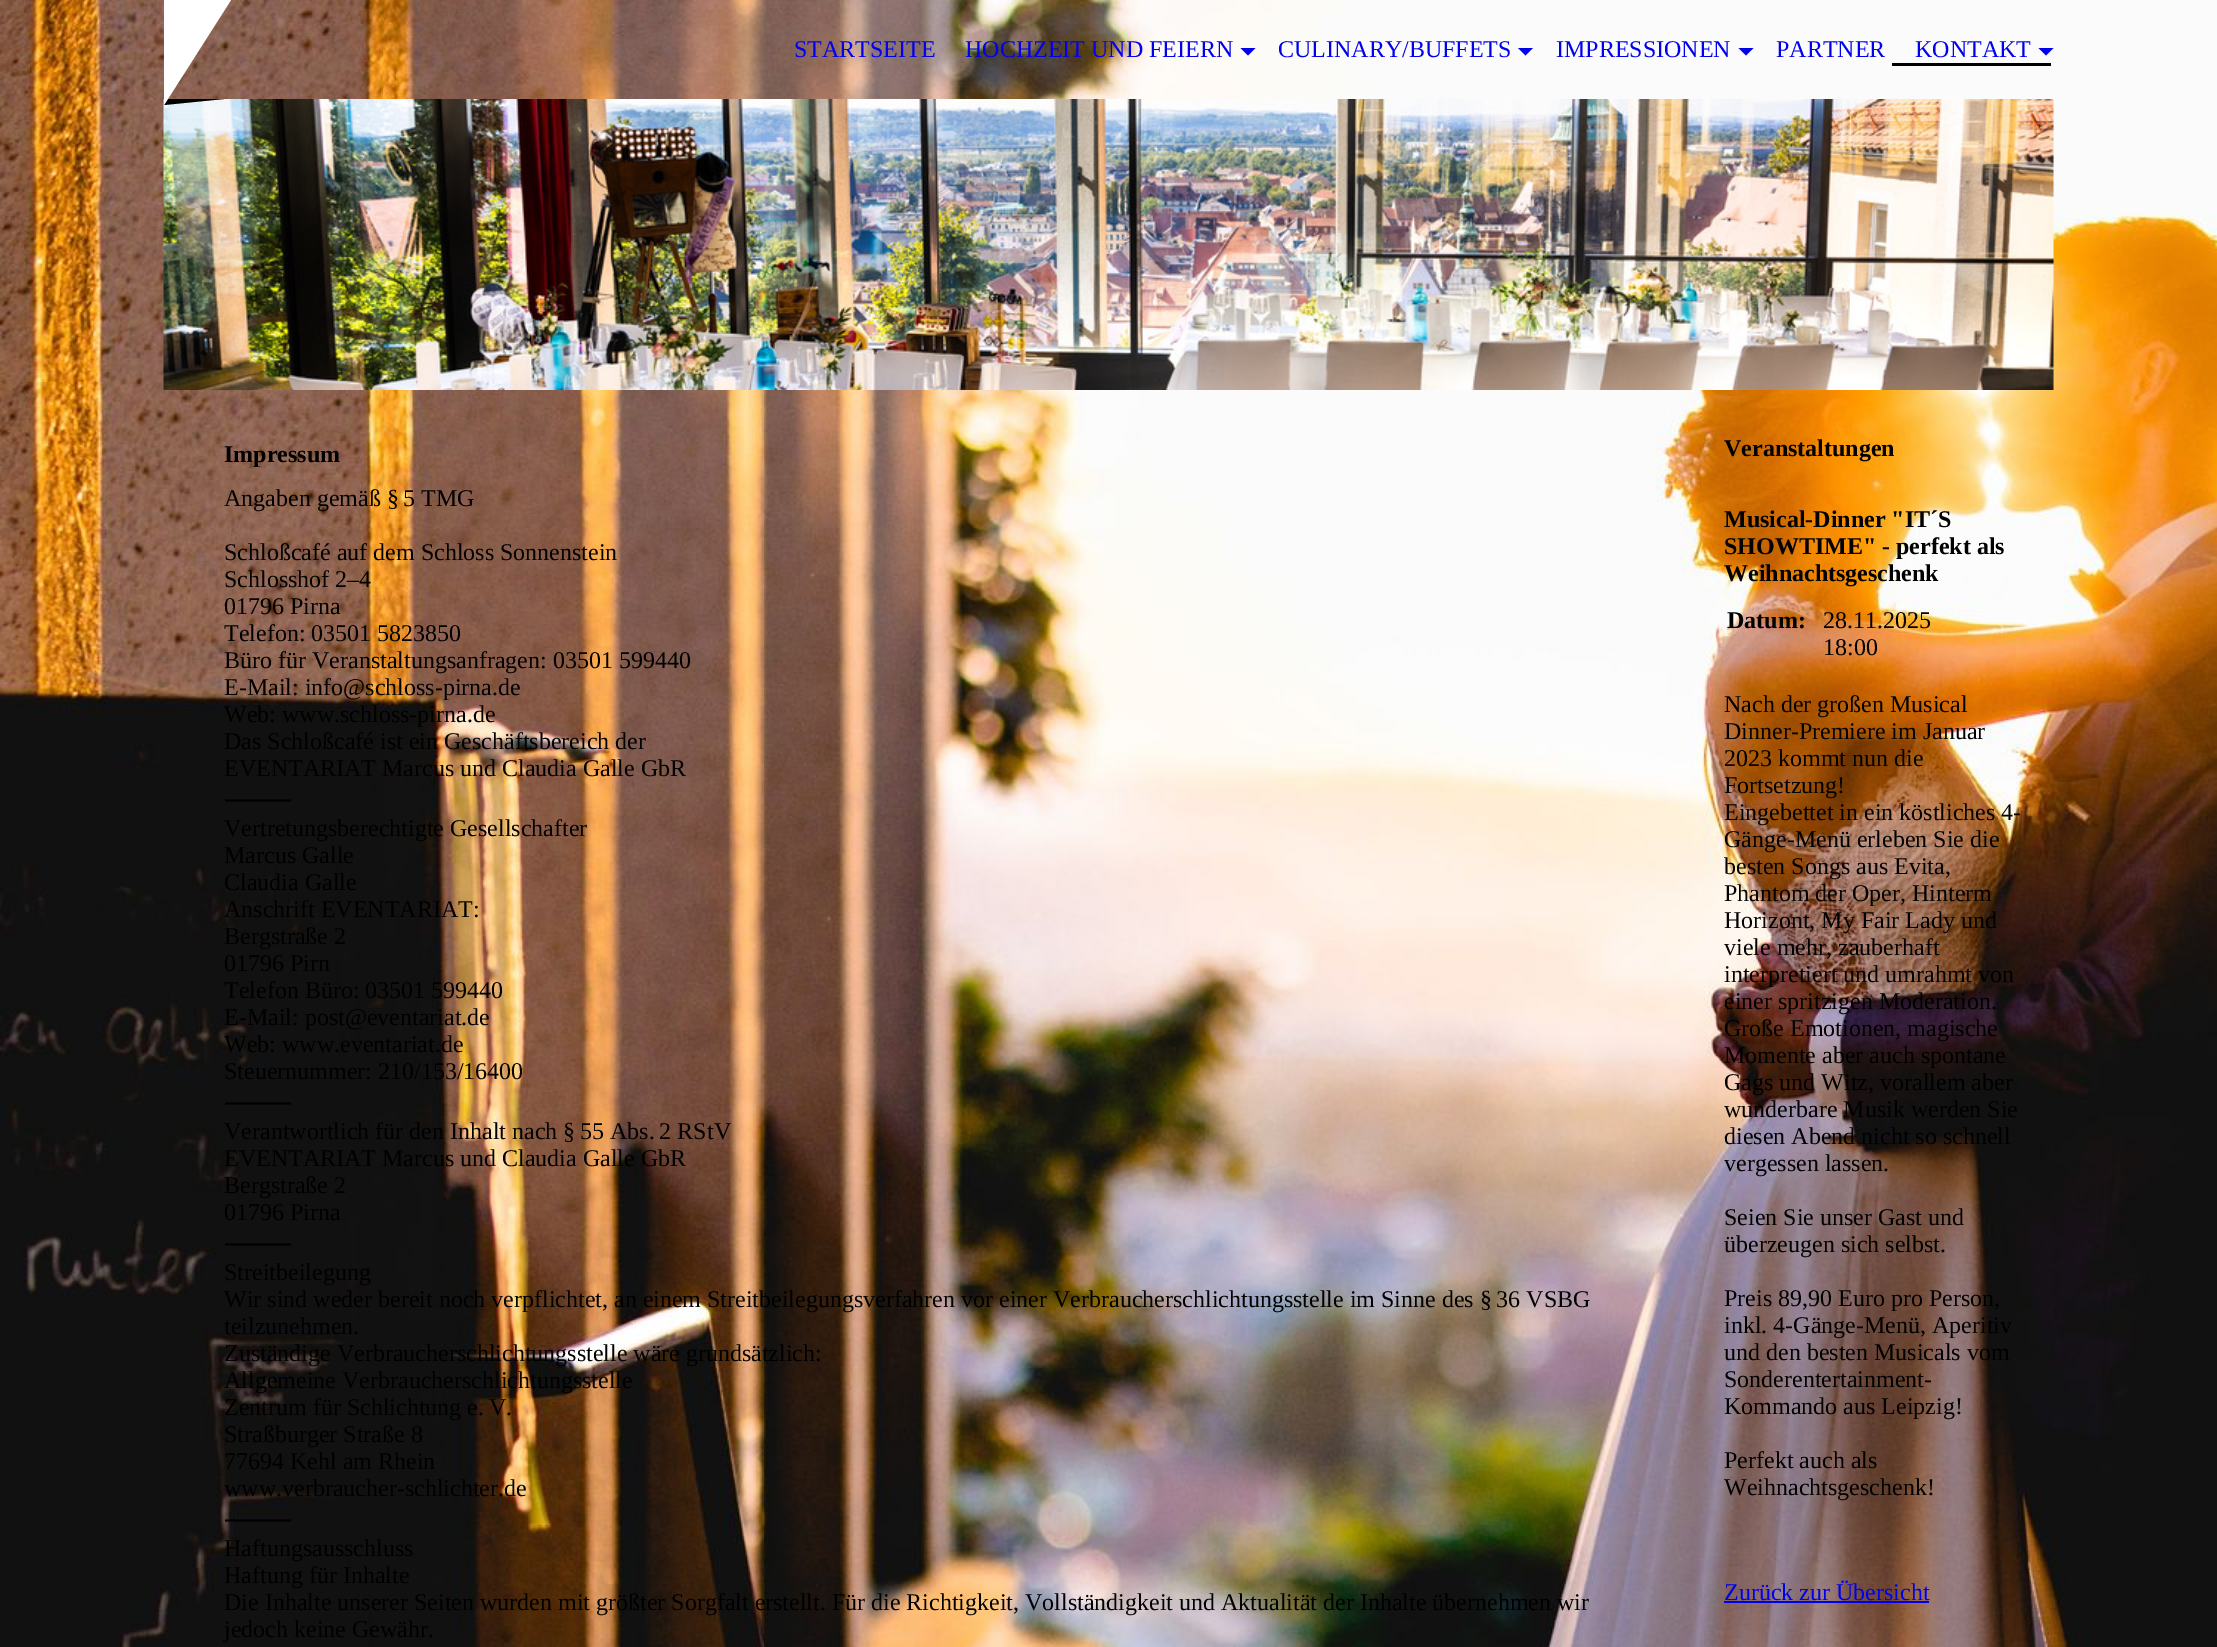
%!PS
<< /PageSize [2217 1647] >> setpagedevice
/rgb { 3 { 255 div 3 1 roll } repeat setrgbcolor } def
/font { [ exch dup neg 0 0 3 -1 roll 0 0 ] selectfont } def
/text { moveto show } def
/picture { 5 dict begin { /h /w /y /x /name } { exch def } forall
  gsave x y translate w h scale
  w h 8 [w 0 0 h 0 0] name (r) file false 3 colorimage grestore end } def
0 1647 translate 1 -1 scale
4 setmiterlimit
255 255 255 rgb
0 0 2217 1647 rectfill
(img_01.rgb) 0 0 2217 1647 picture
(img_02.rgb) 163 99 1891 291 picture
0 0 0 rgb
164 105 moveto 0 -6 rlineto 60 0 rlineto closepath fill
255 255 255 rgb
164 105 moveto 0 -105 rlineto 67 0 rlineto closepath fill
0 0 238 rgb
1240.5 48 moveto 15 0 rlineto -7.5 7.5 rlineto closepath fill
1518 48 moveto 15 0 rlineto -7.5 7.5 rlineto closepath fill
1738.5 48 moveto 15 0 rlineto -7.5 7.5 rlineto closepath fill
2038.5 48 moveto 15 0 rlineto -7.5 7.5 rlineto closepath fill
0 0 0 rgb
1892 63 159 3 rectfill
0 0 238 rgb
1724 1601 205 2 rectfill
/LiberationSerif-Regular 24 font
(STARTSEITE) 794 57 text
(HOCHZEIT UND FEIERN) 965 57 text
(CULINARY/BUFFETS) 1278 57 text
(IMPRESSIONEN) 1556 57 text
(PARTNER) 1776 57 text
(KONTAKT) 1915 57 text
/LiberationSerif-Bold 24 font
0 0 0 rgb
(Impressum) 224 462 text
/LiberationSerif-Regular 24 font
(Angaben gemäß § 5 TMG) 224 506 text
(Schloßcafé auf dem Schloss Sonnenstein) 224 560 text
(Schlosshof 2–4) 224 587 text
(01796 Pirna) 224 614 text
(Telefon: 03501 5823850) 224 641 text
(Büro für Veranstaltungsanfragen: 03501 599440) 224 668 text
(E-Mail: info@schloss-pirna.de) 224 695 text
(Web: www.schloss-pirna.de) 224 722 text
(Das Schloßcafé ist ein Geschäftsbereich der) 224 749 text
(EVENTARIAT Marcus und Claudia Galle GbR) 224 776 text
/NotoSans-Regular 24 font
(⸻) 224 807 text
/LiberationSerif-Regular 24 font
(Vertretungsberechtigte Gesellschafter) 224 836 text
(Marcus Galle) 224 863 text
(Claudia Galle) 224 890 text
(Anschrift EVENTARIAT:) 224 917 text
(Bergstraße 2) 224 944 text
(01796 Pirn) 224 971 text
(Telefon Büro: 03501 599440) 224 998 text
(E-Mail: post@eventariat.de) 224 1025 text
(Web: www.eventariat.de) 224 1052 text
(Steuernummer: 210/153/16400) 224 1079 text
/NotoSans-Regular 24 font
(⸻) 224 1110 text
/LiberationSerif-Regular 24 font
(Verantwortlich für den Inhalt nach § 55 Abs. 2 RStV) 224 1139 text
(EVENTARIAT Marcus und Claudia Galle GbR) 224 1166 text
(Bergstraße 2) 224 1193 text
(01796 Pirna) 224 1220 text
/NotoSans-Regular 24 font
(⸻) 224 1251 text
/LiberationSerif-Regular 24 font
(Streitbeilegung) 224 1280 text
(Wir sind weder bereit noch verpflichtet, an einem Streitbeilegungsverfahren vor einer Verbraucherschlichtungsstelle im Sinne des § 36 VSBG) 224 1307 text
(teilzunehmen.) 224 1334 text
(Zuständige Verbraucherschlichtungsstelle wäre grundsätzlich:) 224 1361 text
(Allgemeine Verbraucherschlichtungsstelle) 224 1388 text
(Zentrum für Schlichtung e. V.) 224 1415 text
(Straßburger Straße 8) 224 1442 text
(77694 Kehl am Rhein) 224 1469 text
(www.verbraucher-schlichter.de) 224 1496 text
/NotoSans-Regular 24 font
(⸻) 224 1527 text
/LiberationSerif-Regular 24 font
(Haftungsausschluss) 224 1556 text
(Haftung für Inhalte) 224 1583 text
(Die Inhalte unserer Seiten wurden mit größter Sorgfalt erstellt. Für die Richtigkeit, Vollständigkeit und Aktualität der Inhalte übernehmen wir) 224 1610 text
(jedoch keine Gewähr.) 224 1637 text
/LiberationSerif-Bold 24 font
(Veranstaltungen) 1724 456 text
(Musical-Dinner "IT´S) 1724 527 text
(SHOWTIME" - perfekt als) 1724 554 text
(Weihnachtsgeschenk) 1724 581 text
(Datum:) 1727 628 text
/LiberationSerif-Regular 24 font
(28.11.2025) 1823 628 text
(18:00) 1823 655 text
(Nach der großen Musical) 1724 712 text
(Dinner-Premiere im Januar) 1724 739 text
(2023 kommt nun die) 1724 766 text
(Fortsetzung!) 1724 793 text
(Eingebettet in ein köstliches 4-) 1724 820 text
(Gänge-Menü erleben Sie die) 1724 847 text
(besten Songs aus Evita,) 1724 874 text
(Phantom der Oper, Hinterm) 1724 901 text
(Horizont, My Fair Lady und) 1724 928 text
(viele mehr, zauberhaft) 1724 955 text
(interpretiert und umrahmt von) 1724 982 text
(einer spritzigen Moderation.) 1724 1009 text
(Große Emotionen, magische) 1724 1036 text
(Momente aber auch spontane) 1724 1063 text
(Gags und Witz, vorallem aber) 1724 1090 text
(wunderbare Musik werden Sie) 1724 1117 text
(diesen Abend nicht so schnell) 1724 1144 text
(vergessen lassen.) 1724 1171 text
(Seien Sie unser Gast und) 1724 1225 text
(überzeugen sich selbst.) 1724 1252 text
(Preis 89,90 Euro pro Person,) 1724 1306 text
(inkl. 4-Gänge-Menü, Aperitiv) 1724 1333 text
(und den besten Musicals vom) 1724 1360 text
(Sonderentertainment-) 1724 1387 text
(Kommando aus Leipzig!) 1724 1414 text
(Perfekt auch als) 1724 1468 text
(Weihnachtsgeschenk!) 1724 1495 text
0 0 238 rgb
(Zurück zur Übersicht) 1724 1600 text
showpage
